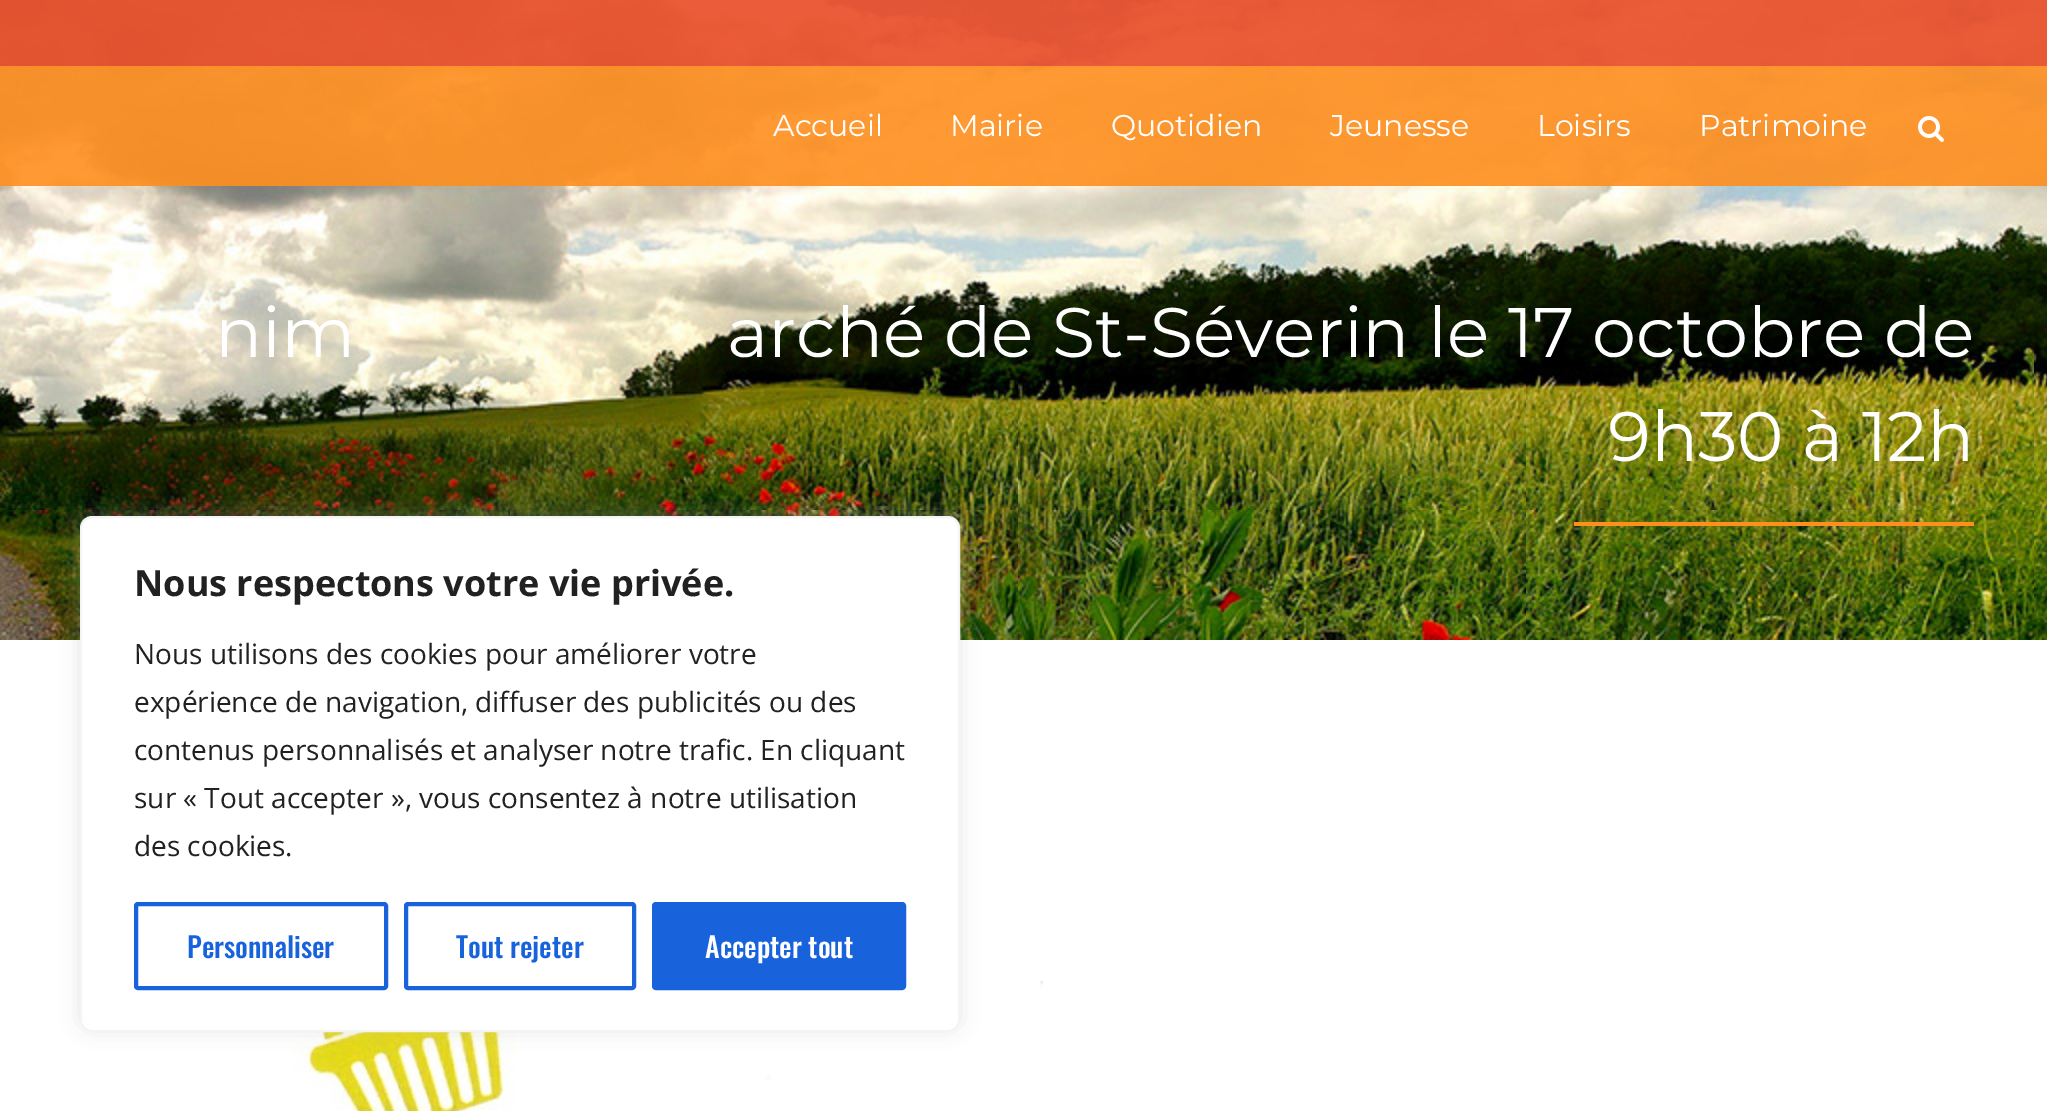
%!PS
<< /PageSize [2047 1111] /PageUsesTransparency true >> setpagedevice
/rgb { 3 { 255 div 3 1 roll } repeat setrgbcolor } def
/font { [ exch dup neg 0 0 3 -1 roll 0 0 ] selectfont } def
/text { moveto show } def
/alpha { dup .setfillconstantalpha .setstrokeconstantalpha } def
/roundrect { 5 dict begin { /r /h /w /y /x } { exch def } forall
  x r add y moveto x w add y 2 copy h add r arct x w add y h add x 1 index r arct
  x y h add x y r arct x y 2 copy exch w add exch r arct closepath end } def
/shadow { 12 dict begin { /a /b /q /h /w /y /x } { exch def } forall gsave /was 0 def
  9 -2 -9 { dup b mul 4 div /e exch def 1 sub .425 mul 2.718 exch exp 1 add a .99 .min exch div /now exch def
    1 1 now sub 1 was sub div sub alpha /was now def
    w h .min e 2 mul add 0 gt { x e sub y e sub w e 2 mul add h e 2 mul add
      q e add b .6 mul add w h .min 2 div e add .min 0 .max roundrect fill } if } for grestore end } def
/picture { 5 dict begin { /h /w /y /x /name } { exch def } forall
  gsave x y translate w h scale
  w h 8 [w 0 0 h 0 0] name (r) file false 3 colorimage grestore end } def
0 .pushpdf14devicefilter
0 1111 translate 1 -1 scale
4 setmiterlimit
255 255 255 rgb
0 0 2047 1111 rectfill
(img_02.rgb) 0 0 2047 640 picture
0.9 alpha
233 75 37 rgb
0 0 2047 66 rectfill
254 142 30 rgb
0 66 2047 120 rectfill
1 alpha
(img_01.rgb) 1918 116 26 26 picture
1574 522 400 4 rectfill
(img_03.rgb) 111 768 932 343 picture
172 171 171 rgb
80 514 880 516 12 10 0.3 shadow
255 255 255 rgb
81 517 878 514 11 roundrect gsave fill grestore
244 244 244 rgb
2 setlinewidth
stroke
24 99 220 rgb
4 setlinewidth
136 904 250 84 2 roundrect stroke
406 904 228 84 2 roundrect stroke
654 904 250 84 2 roundrect gsave fill grestore
stroke
/Montserrat-Regular 30 font
255 255 255 rgb
(Accueil) 773 136 text
(Mairie) 950 136 text
(Quotidien) 1111 136 text
(Jeunesse) 1330 136 text
(Loisirs) 1537 136 text
(Patrimoine) 1699 136 text
/Montserrat-Regular 70 font
(nim) 215 357 text
(arché de St-Séverin le 17 octobre de) 727 357 text
(9h30 à 12h) 1608 461 text
/OpenSans-Bold 36 font
33 33 33 rgb
(Nous respectons votre vie privée.) 134 596 text
/OpenSans-Regular 28 font
(Nous utilisons des cookies pour améliorer votre) 134 664 text
(expérience de navigation, diffuser des publicités ou des) 134 712 text
(contenus personnalisés et analyser notre trafic. En cliquant) 134 760 text
(sur « Tout accepter », vous consentez à notre utilisation) 134 808 text
(des cookies.) 134 856 text
/Oswald-Medium 28 font
24 99 220 rgb
(Personnaliser) 187 958 text
(Tout rejeter) 456 958 text
255 255 255 rgb
(Accepter tout) 705 958 text
.poppdf14devicefilter showpage
